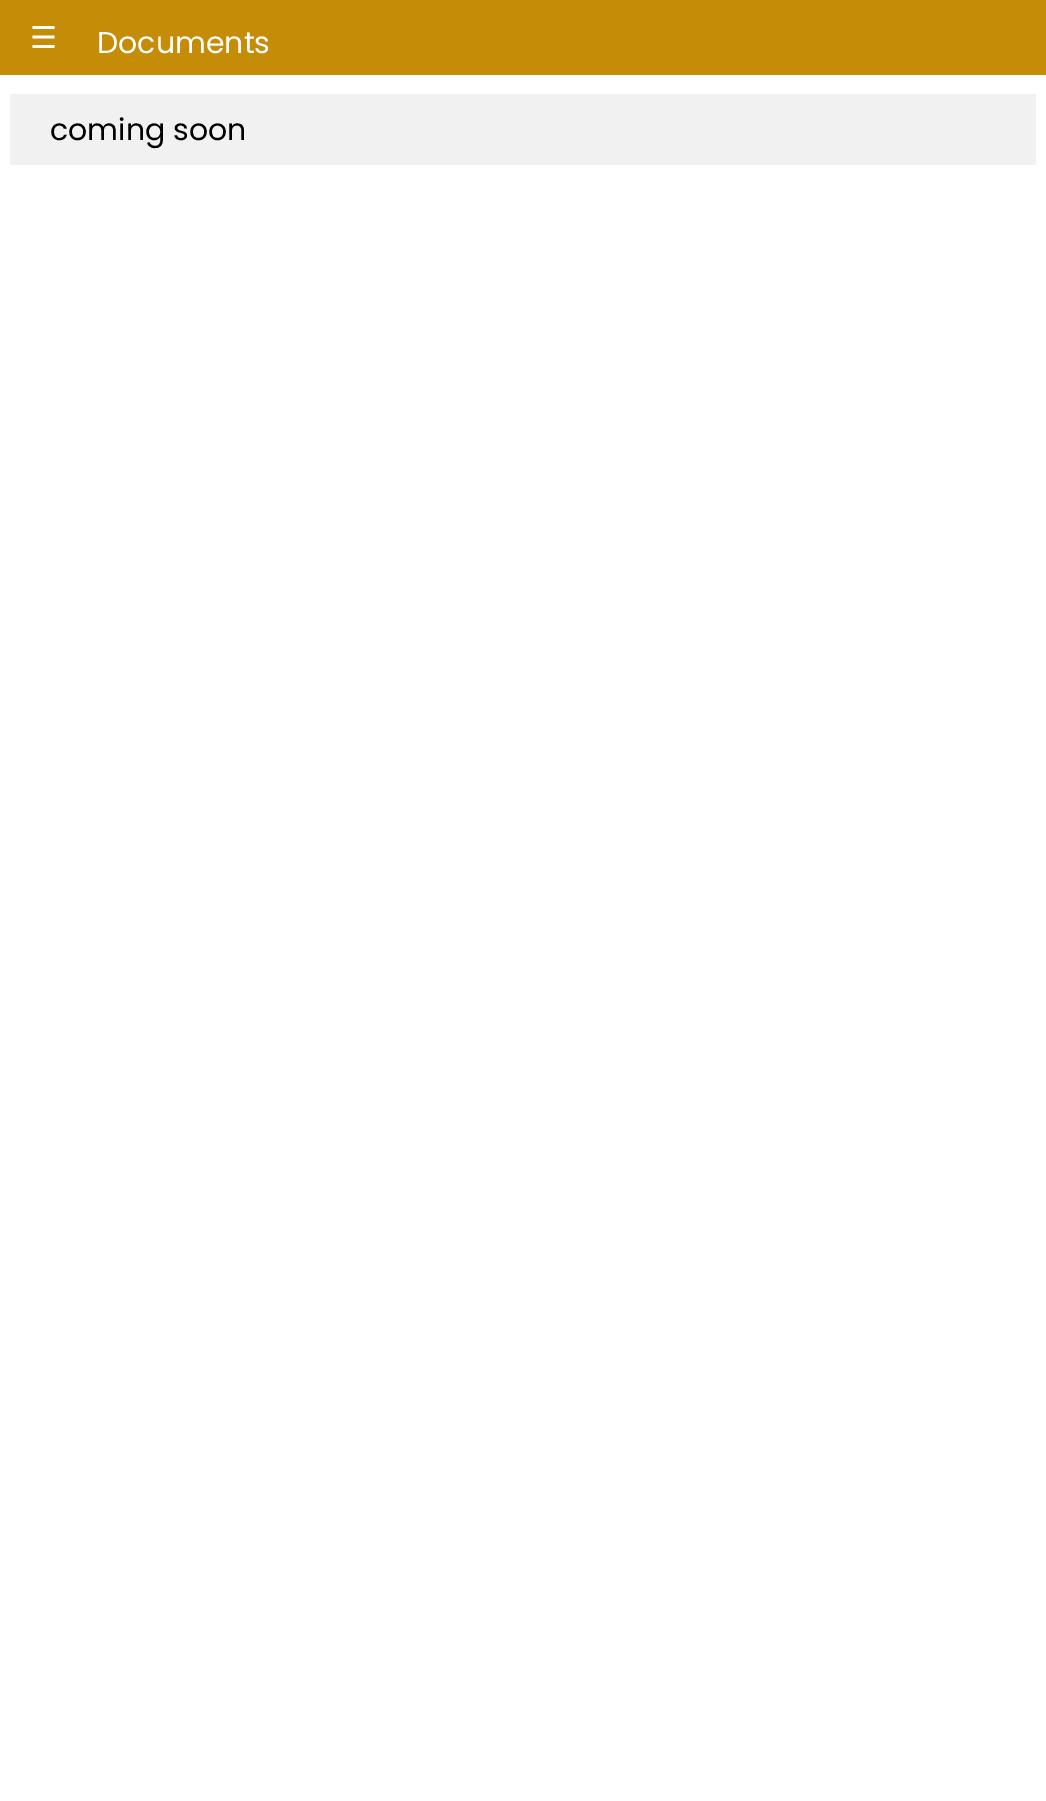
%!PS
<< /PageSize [1046 1801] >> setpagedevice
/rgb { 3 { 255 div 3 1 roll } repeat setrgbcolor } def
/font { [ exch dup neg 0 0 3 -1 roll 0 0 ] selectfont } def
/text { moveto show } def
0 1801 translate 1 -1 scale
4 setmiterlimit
255 255 255 rgb
0 0 1046 1801 rectfill
197 140 7 rgb
0 0 1046 75 rectfill
241 241 241 rgb
10 94 1026 71 rectfill
/DejaVuSans-Regular 30 font
255 255 255 rgb
(☰) 30 48 text
/Poppins-Regular 30 font
(Documents) 97 53 text
0 0 0 rgb
(coming soon) 50 140 text
showpage
